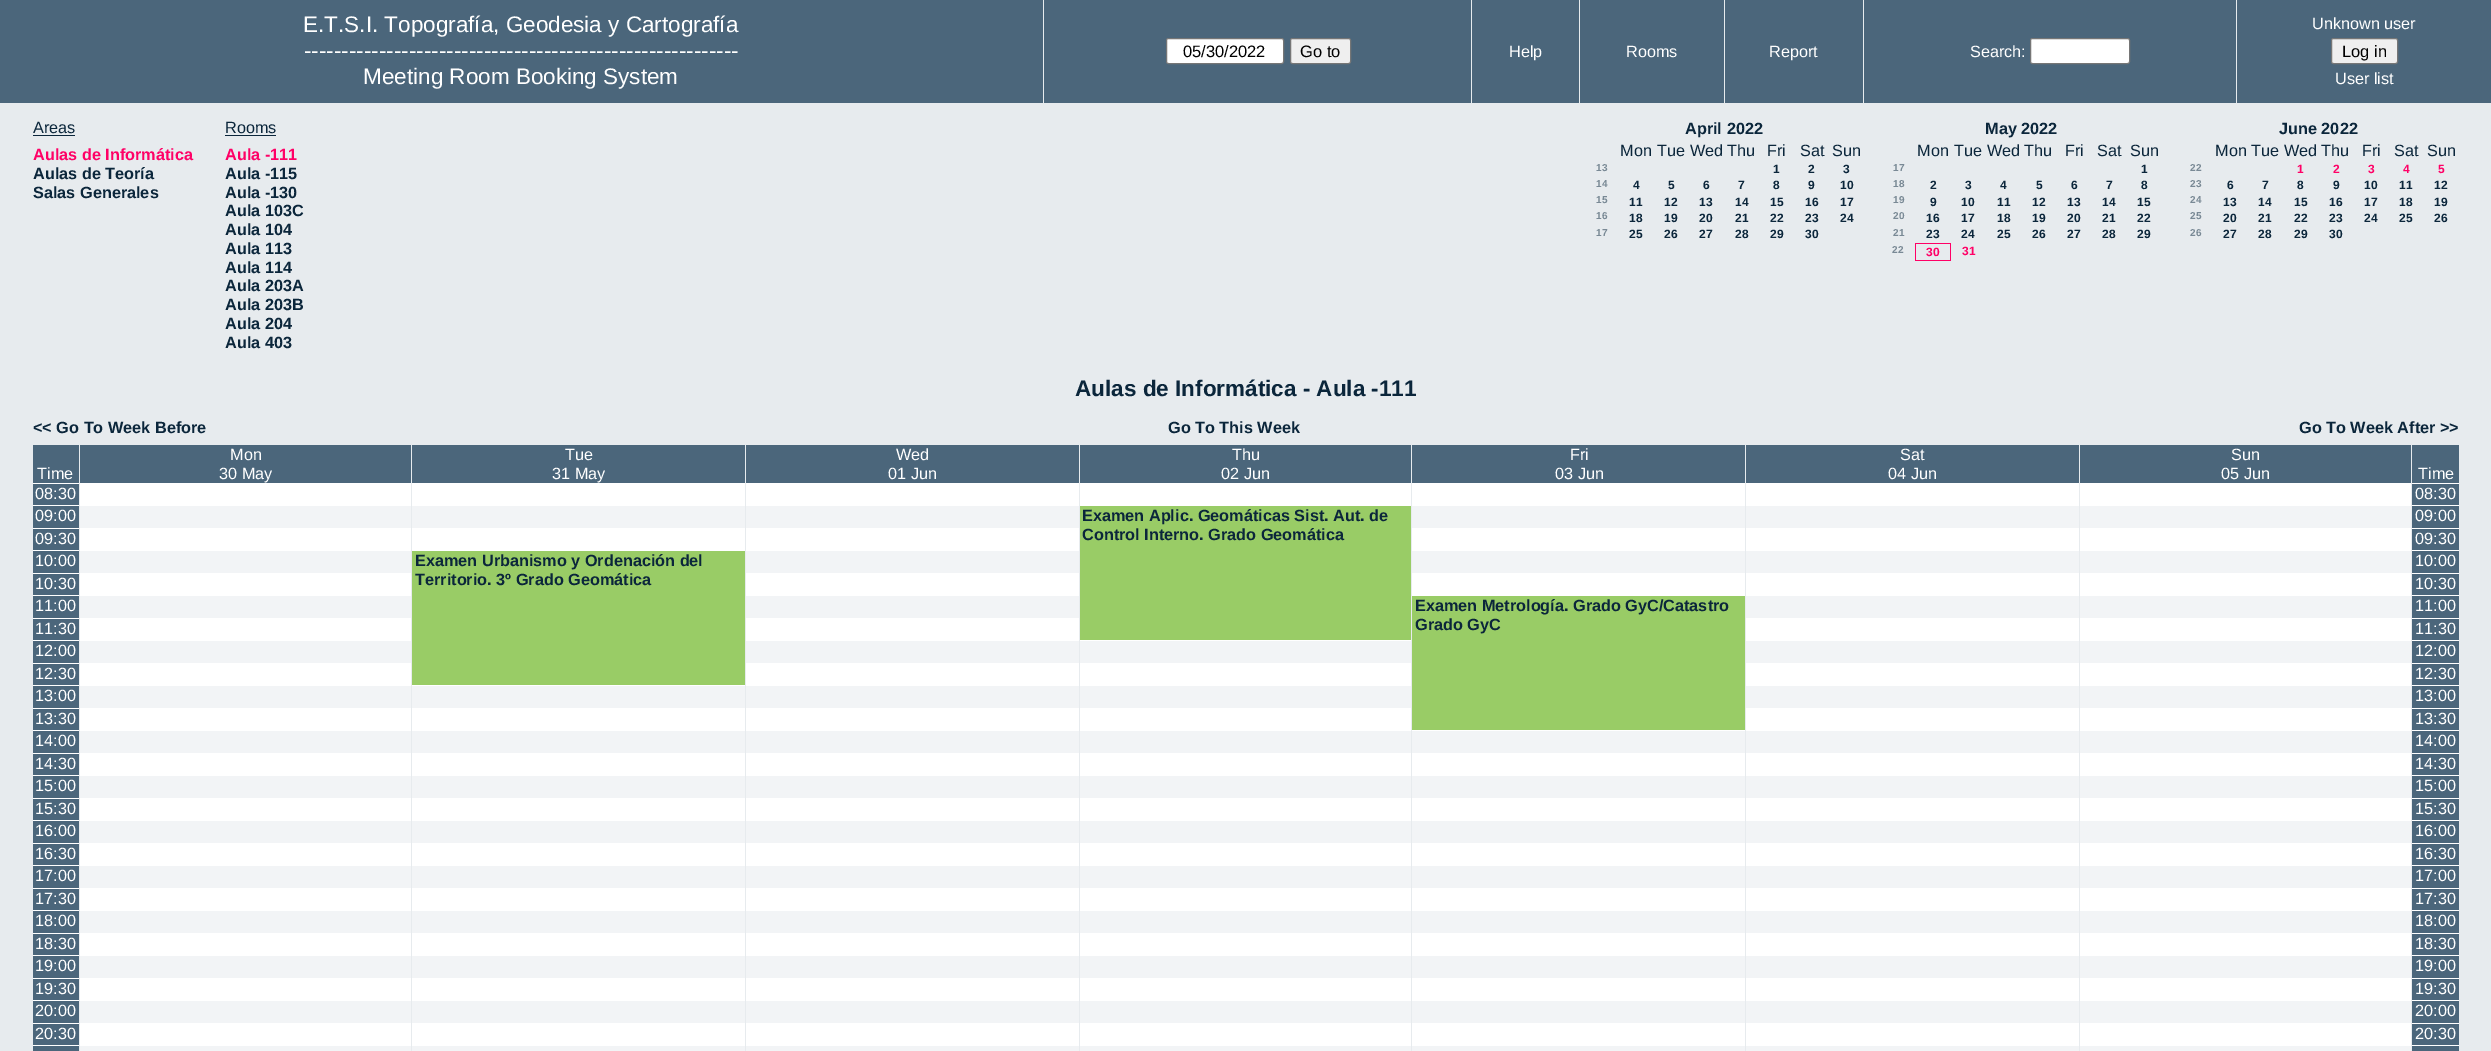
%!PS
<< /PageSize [2491 1051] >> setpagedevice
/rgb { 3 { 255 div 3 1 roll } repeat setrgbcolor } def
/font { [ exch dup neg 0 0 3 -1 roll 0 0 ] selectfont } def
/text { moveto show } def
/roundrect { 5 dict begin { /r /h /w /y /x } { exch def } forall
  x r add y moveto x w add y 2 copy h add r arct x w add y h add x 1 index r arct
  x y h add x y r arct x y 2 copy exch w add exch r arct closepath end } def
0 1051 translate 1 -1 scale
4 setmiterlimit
231 235 238 rgb
0 0 2491 1051 rectfill
75 102 123 rgb
0 0 2491 103 rectfill
231 235 238 rgb
1043 0 1 103 rectfill
255 255 255 rgb
1166.5 38.5 117 25 2 roundrect gsave fill grestore
118 118 118 rgb
stroke
239 239 239 rgb
1290.5 38.5 60 25 2 roundrect gsave fill grestore
118 118 118 rgb
stroke
231 235 238 rgb
1471 0 1 103 rectfill
1579 0 1 103 rectfill
1724 0 1 103 rectfill
1863 0 1 103 rectfill
255 255 255 rgb
2030.5 38.5 99 25 2 roundrect gsave fill grestore
118 118 118 rgb
stroke
231 235 238 rgb
2236 0 1 103 rectfill
239 239 239 rgb
2331.5 38.5 66 25 2 roundrect gsave fill grestore
118 118 118 rgb
stroke
11 38 59 rgb
33 135 42 1 rectfill
225 135 51 1 rectfill
255 0 102 rgb
1915 243 36 1 rectfill
1950 243 1 18 rectfill
1915 260 36 1 rectfill
1915 243 1 18 rectfill
75 102 123 rgb
33 445 46 38 rectfill
80 445 331 38 rectfill
412 445 333 38 rectfill
746 445 333 38 rectfill
1080 445 331 38 rectfill
1412 445 333 38 rectfill
1746 445 333 38 rectfill
2080 445 331 38 rectfill
2412 445 47 38 rectfill
33 484 46 21 rectfill
255 255 255 rgb
33 483 46 1 rectfill
80 483 331 22 rectfill
412 483 333 22 rectfill
746 483 333 22 rectfill
1080 483 331 22 rectfill
1412 483 333 22 rectfill
1746 483 333 22 rectfill
2080 483 331 22 rectfill
75 102 123 rgb
2412 484 47 21 rectfill
255 255 255 rgb
2411 483 48 1 rectfill
231 235 238 rgb
2411 483 1 1 rectfill
75 102 123 rgb
33 506 46 22 rectfill
255 255 255 rgb
33 505 2426 1 rectfill
242 244 246 rgb
80 506 331 22 rectfill
231 235 238 rgb
79 505 1 1 rectfill
242 244 246 rgb
412 506 333 22 rectfill
231 235 238 rgb
411 505 1 1 rectfill
242 244 246 rgb
746 506 333 22 rectfill
231 235 238 rgb
745 505 1 1 rectfill
153 204 102 rgb
1080 506 331 134 rectfill
231 235 238 rgb
1079 505 1 1 rectfill
242 244 246 rgb
1412 506 333 22 rectfill
231 235 238 rgb
1411 505 1 1 rectfill
242 244 246 rgb
1746 506 333 22 rectfill
231 235 238 rgb
1745 505 1 1 rectfill
242 244 246 rgb
2080 506 331 22 rectfill
231 235 238 rgb
2079 505 1 1 rectfill
75 102 123 rgb
2412 506 47 22 rectfill
231 235 238 rgb
2411 505 1 1 rectfill
75 102 123 rgb
33 529 46 21 rectfill
255 255 255 rgb
33 528 46 1 rectfill
80 528 331 22 rectfill
412 528 333 22 rectfill
746 528 333 22 rectfill
1412 528 333 22 rectfill
1746 528 333 22 rectfill
2080 528 331 22 rectfill
75 102 123 rgb
2412 529 47 21 rectfill
255 255 255 rgb
2411 528 48 1 rectfill
231 235 238 rgb
2411 528 1 1 rectfill
242 244 246 rgb
80 551 331 22 rectfill
255 255 255 rgb
33 550 1046 1 rectfill
231 235 238 rgb
79 550 1 1 rectfill
242 244 246 rgb
746 551 333 22 rectfill
231 235 238 rgb
745 550 1 1 rectfill
242 244 246 rgb
1412 551 333 22 rectfill
255 255 255 rgb
1411 550 1048 1 rectfill
231 235 238 rgb
1411 550 1 1 rectfill
75 102 123 rgb
33 551 46 22 rectfill
153 204 102 rgb
412 551 333 134 rectfill
231 235 238 rgb
411 550 1 1 rectfill
242 244 246 rgb
1746 551 333 22 rectfill
231 235 238 rgb
1745 550 1 1 rectfill
242 244 246 rgb
2080 551 331 22 rectfill
231 235 238 rgb
2079 550 1 1 rectfill
75 102 123 rgb
2412 551 47 22 rectfill
231 235 238 rgb
2411 550 1 1 rectfill
75 102 123 rgb
33 574 46 21 rectfill
255 255 255 rgb
33 573 46 1 rectfill
80 573 331 22 rectfill
746 573 333 22 rectfill
1412 573 333 22 rectfill
1746 573 333 22 rectfill
2080 573 331 22 rectfill
75 102 123 rgb
2412 574 47 21 rectfill
255 255 255 rgb
2411 573 48 1 rectfill
231 235 238 rgb
2411 573 1 1 rectfill
75 102 123 rgb
33 596 46 22 rectfill
255 255 255 rgb
33 595 378 1 rectfill
242 244 246 rgb
80 596 331 22 rectfill
231 235 238 rgb
79 595 1 1 rectfill
242 244 246 rgb
746 596 333 22 rectfill
255 255 255 rgb
745 595 334 1 rectfill
231 235 238 rgb
745 595 1 1 rectfill
153 204 102 rgb
1412 596 333 134 rectfill
255 255 255 rgb
1411 595 1048 1 rectfill
231 235 238 rgb
1411 595 1 1 rectfill
242 244 246 rgb
1746 596 333 22 rectfill
231 235 238 rgb
1745 595 1 1 rectfill
242 244 246 rgb
2080 596 331 22 rectfill
231 235 238 rgb
2079 595 1 1 rectfill
75 102 123 rgb
2412 596 47 22 rectfill
231 235 238 rgb
2411 595 1 1 rectfill
75 102 123 rgb
33 619 46 21 rectfill
255 255 255 rgb
33 618 46 1 rectfill
80 618 331 22 rectfill
746 618 333 22 rectfill
1746 618 333 22 rectfill
2080 618 331 22 rectfill
75 102 123 rgb
2412 619 47 21 rectfill
255 255 255 rgb
2411 618 48 1 rectfill
231 235 238 rgb
2411 618 1 1 rectfill
242 244 246 rgb
80 641 331 22 rectfill
255 255 255 rgb
33 640 378 1 rectfill
231 235 238 rgb
79 640 1 1 rectfill
242 244 246 rgb
746 641 333 22 rectfill
255 255 255 rgb
745 640 666 1 rectfill
231 235 238 rgb
745 640 1 1 rectfill
242 244 246 rgb
1080 641 331 22 rectfill
231 235 238 rgb
1079 640 1 1 rectfill
242 244 246 rgb
1746 641 333 22 rectfill
255 255 255 rgb
1745 640 714 1 rectfill
231 235 238 rgb
1745 640 1 1 rectfill
75 102 123 rgb
33 641 46 22 rectfill
242 244 246 rgb
2080 641 331 22 rectfill
231 235 238 rgb
2079 640 1 1 rectfill
75 102 123 rgb
2412 641 47 22 rectfill
231 235 238 rgb
2411 640 1 1 rectfill
75 102 123 rgb
33 664 46 21 rectfill
255 255 255 rgb
33 663 46 1 rectfill
80 663 331 22 rectfill
746 663 333 22 rectfill
1080 663 331 22 rectfill
1746 663 333 22 rectfill
2080 663 331 22 rectfill
75 102 123 rgb
2412 664 47 21 rectfill
255 255 255 rgb
2411 663 48 1 rectfill
231 235 238 rgb
2411 663 1 1 rectfill
242 244 246 rgb
80 686 331 22 rectfill
255 255 255 rgb
33 685 1378 1 rectfill
231 235 238 rgb
79 685 1 1 rectfill
242 244 246 rgb
412 686 333 22 rectfill
231 235 238 rgb
411 685 1 1 rectfill
242 244 246 rgb
746 686 333 22 rectfill
231 235 238 rgb
745 685 1 1 rectfill
242 244 246 rgb
1080 686 331 22 rectfill
231 235 238 rgb
1079 685 1 1 rectfill
242 244 246 rgb
1746 686 333 22 rectfill
255 255 255 rgb
1745 685 714 1 rectfill
231 235 238 rgb
1745 685 1 1 rectfill
75 102 123 rgb
33 686 46 22 rectfill
242 244 246 rgb
2080 686 331 22 rectfill
231 235 238 rgb
2079 685 1 1 rectfill
75 102 123 rgb
2412 686 47 22 rectfill
231 235 238 rgb
2411 685 1 1 rectfill
75 102 123 rgb
33 709 46 21 rectfill
255 255 255 rgb
33 708 46 1 rectfill
80 708 331 22 rectfill
412 708 333 22 rectfill
746 708 333 22 rectfill
1080 708 331 22 rectfill
1746 708 333 22 rectfill
2080 708 331 22 rectfill
75 102 123 rgb
2412 709 47 21 rectfill
255 255 255 rgb
2411 708 48 1 rectfill
231 235 238 rgb
2411 708 1 1 rectfill
75 102 123 rgb
33 731 46 22 rectfill
255 255 255 rgb
33 730 2426 1 rectfill
242 244 246 rgb
80 731 331 22 rectfill
231 235 238 rgb
79 730 1 1 rectfill
242 244 246 rgb
412 731 333 22 rectfill
231 235 238 rgb
411 730 1 1 rectfill
242 244 246 rgb
746 731 333 22 rectfill
231 235 238 rgb
745 730 1 1 rectfill
242 244 246 rgb
1080 731 331 22 rectfill
231 235 238 rgb
1079 730 1 1 rectfill
242 244 246 rgb
1412 731 333 22 rectfill
231 235 238 rgb
1411 730 1 1 rectfill
242 244 246 rgb
1746 731 333 22 rectfill
231 235 238 rgb
1745 730 1 1 rectfill
242 244 246 rgb
2080 731 331 22 rectfill
231 235 238 rgb
2079 730 1 1 rectfill
75 102 123 rgb
2412 731 47 22 rectfill
231 235 238 rgb
2411 730 1 1 rectfill
75 102 123 rgb
33 754 46 21 rectfill
255 255 255 rgb
33 753 46 1 rectfill
80 753 331 22 rectfill
412 753 333 22 rectfill
746 753 333 22 rectfill
1080 753 331 22 rectfill
1412 753 333 22 rectfill
1746 753 333 22 rectfill
2080 753 331 22 rectfill
75 102 123 rgb
2412 754 47 21 rectfill
255 255 255 rgb
2411 753 48 1 rectfill
231 235 238 rgb
2411 753 1 1 rectfill
75 102 123 rgb
33 776 46 22 rectfill
255 255 255 rgb
33 775 2426 1 rectfill
242 244 246 rgb
80 776 331 22 rectfill
231 235 238 rgb
79 775 1 1 rectfill
242 244 246 rgb
412 776 333 22 rectfill
231 235 238 rgb
411 775 1 1 rectfill
242 244 246 rgb
746 776 333 22 rectfill
231 235 238 rgb
745 775 1 1 rectfill
242 244 246 rgb
1080 776 331 22 rectfill
231 235 238 rgb
1079 775 1 1 rectfill
242 244 246 rgb
1412 776 333 22 rectfill
231 235 238 rgb
1411 775 1 1 rectfill
242 244 246 rgb
1746 776 333 22 rectfill
231 235 238 rgb
1745 775 1 1 rectfill
242 244 246 rgb
2080 776 331 22 rectfill
231 235 238 rgb
2079 775 1 1 rectfill
75 102 123 rgb
2412 776 47 22 rectfill
231 235 238 rgb
2411 775 1 1 rectfill
75 102 123 rgb
33 799 46 21 rectfill
255 255 255 rgb
33 798 46 1 rectfill
80 798 331 22 rectfill
412 798 333 22 rectfill
746 798 333 22 rectfill
1080 798 331 22 rectfill
1412 798 333 22 rectfill
1746 798 333 22 rectfill
2080 798 331 22 rectfill
75 102 123 rgb
2412 799 47 21 rectfill
255 255 255 rgb
2411 798 48 1 rectfill
231 235 238 rgb
2411 798 1 1 rectfill
75 102 123 rgb
33 821 46 22 rectfill
255 255 255 rgb
33 820 2426 1 rectfill
242 244 246 rgb
80 821 331 22 rectfill
231 235 238 rgb
79 820 1 1 rectfill
242 244 246 rgb
412 821 333 22 rectfill
231 235 238 rgb
411 820 1 1 rectfill
242 244 246 rgb
746 821 333 22 rectfill
231 235 238 rgb
745 820 1 1 rectfill
242 244 246 rgb
1080 821 331 22 rectfill
231 235 238 rgb
1079 820 1 1 rectfill
242 244 246 rgb
1412 821 333 22 rectfill
231 235 238 rgb
1411 820 1 1 rectfill
242 244 246 rgb
1746 821 333 22 rectfill
231 235 238 rgb
1745 820 1 1 rectfill
242 244 246 rgb
2080 821 331 22 rectfill
231 235 238 rgb
2079 820 1 1 rectfill
75 102 123 rgb
2412 821 47 22 rectfill
231 235 238 rgb
2411 820 1 1 rectfill
75 102 123 rgb
33 844 46 21 rectfill
255 255 255 rgb
33 843 46 1 rectfill
80 843 331 22 rectfill
412 843 333 22 rectfill
746 843 333 22 rectfill
1080 843 331 22 rectfill
1412 843 333 22 rectfill
1746 843 333 22 rectfill
2080 843 331 22 rectfill
75 102 123 rgb
2412 844 47 21 rectfill
255 255 255 rgb
2411 843 48 1 rectfill
231 235 238 rgb
2411 843 1 1 rectfill
75 102 123 rgb
33 866 46 22 rectfill
255 255 255 rgb
33 865 2426 1 rectfill
242 244 246 rgb
80 866 331 22 rectfill
231 235 238 rgb
79 865 1 1 rectfill
242 244 246 rgb
412 866 333 22 rectfill
231 235 238 rgb
411 865 1 1 rectfill
242 244 246 rgb
746 866 333 22 rectfill
231 235 238 rgb
745 865 1 1 rectfill
242 244 246 rgb
1080 866 331 22 rectfill
231 235 238 rgb
1079 865 1 1 rectfill
242 244 246 rgb
1412 866 333 22 rectfill
231 235 238 rgb
1411 865 1 1 rectfill
242 244 246 rgb
1746 866 333 22 rectfill
231 235 238 rgb
1745 865 1 1 rectfill
242 244 246 rgb
2080 866 331 22 rectfill
231 235 238 rgb
2079 865 1 1 rectfill
75 102 123 rgb
2412 866 47 22 rectfill
231 235 238 rgb
2411 865 1 1 rectfill
75 102 123 rgb
33 889 46 21 rectfill
255 255 255 rgb
33 888 46 1 rectfill
80 888 331 22 rectfill
412 888 333 22 rectfill
746 888 333 22 rectfill
1080 888 331 22 rectfill
1412 888 333 22 rectfill
1746 888 333 22 rectfill
2080 888 331 22 rectfill
75 102 123 rgb
2412 889 47 21 rectfill
255 255 255 rgb
2411 888 48 1 rectfill
231 235 238 rgb
2411 888 1 1 rectfill
75 102 123 rgb
33 911 46 22 rectfill
255 255 255 rgb
33 910 2426 1 rectfill
242 244 246 rgb
80 911 331 22 rectfill
231 235 238 rgb
79 910 1 1 rectfill
242 244 246 rgb
412 911 333 22 rectfill
231 235 238 rgb
411 910 1 1 rectfill
242 244 246 rgb
746 911 333 22 rectfill
231 235 238 rgb
745 910 1 1 rectfill
242 244 246 rgb
1080 911 331 22 rectfill
231 235 238 rgb
1079 910 1 1 rectfill
242 244 246 rgb
1412 911 333 22 rectfill
231 235 238 rgb
1411 910 1 1 rectfill
242 244 246 rgb
1746 911 333 22 rectfill
231 235 238 rgb
1745 910 1 1 rectfill
242 244 246 rgb
2080 911 331 22 rectfill
231 235 238 rgb
2079 910 1 1 rectfill
75 102 123 rgb
2412 911 47 22 rectfill
231 235 238 rgb
2411 910 1 1 rectfill
75 102 123 rgb
33 934 46 21 rectfill
255 255 255 rgb
33 933 46 1 rectfill
80 933 331 22 rectfill
412 933 333 22 rectfill
746 933 333 22 rectfill
1080 933 331 22 rectfill
1412 933 333 22 rectfill
1746 933 333 22 rectfill
2080 933 331 22 rectfill
75 102 123 rgb
2412 934 47 21 rectfill
255 255 255 rgb
2411 933 48 1 rectfill
231 235 238 rgb
2411 933 1 1 rectfill
75 102 123 rgb
33 956 46 22 rectfill
255 255 255 rgb
33 955 2426 1 rectfill
242 244 246 rgb
80 956 331 22 rectfill
231 235 238 rgb
79 955 1 1 rectfill
242 244 246 rgb
412 956 333 22 rectfill
231 235 238 rgb
411 955 1 1 rectfill
242 244 246 rgb
746 956 333 22 rectfill
231 235 238 rgb
745 955 1 1 rectfill
242 244 246 rgb
1080 956 331 22 rectfill
231 235 238 rgb
1079 955 1 1 rectfill
242 244 246 rgb
1412 956 333 22 rectfill
231 235 238 rgb
1411 955 1 1 rectfill
242 244 246 rgb
1746 956 333 22 rectfill
231 235 238 rgb
1745 955 1 1 rectfill
242 244 246 rgb
2080 956 331 22 rectfill
231 235 238 rgb
2079 955 1 1 rectfill
75 102 123 rgb
2412 956 47 22 rectfill
231 235 238 rgb
2411 955 1 1 rectfill
75 102 123 rgb
33 979 46 21 rectfill
255 255 255 rgb
33 978 46 1 rectfill
80 978 331 22 rectfill
412 978 333 22 rectfill
746 978 333 22 rectfill
1080 978 331 22 rectfill
1412 978 333 22 rectfill
1746 978 333 22 rectfill
2080 978 331 22 rectfill
75 102 123 rgb
2412 979 47 21 rectfill
255 255 255 rgb
2411 978 48 1 rectfill
231 235 238 rgb
2411 978 1 1 rectfill
75 102 123 rgb
33 1001 46 22 rectfill
255 255 255 rgb
33 1000 2426 1 rectfill
242 244 246 rgb
80 1001 331 22 rectfill
231 235 238 rgb
79 1000 1 1 rectfill
242 244 246 rgb
412 1001 333 22 rectfill
231 235 238 rgb
411 1000 1 1 rectfill
242 244 246 rgb
746 1001 333 22 rectfill
231 235 238 rgb
745 1000 1 1 rectfill
242 244 246 rgb
1080 1001 331 22 rectfill
231 235 238 rgb
1079 1000 1 1 rectfill
242 244 246 rgb
1412 1001 333 22 rectfill
231 235 238 rgb
1411 1000 1 1 rectfill
242 244 246 rgb
1746 1001 333 22 rectfill
231 235 238 rgb
1745 1000 1 1 rectfill
242 244 246 rgb
2080 1001 331 22 rectfill
231 235 238 rgb
2079 1000 1 1 rectfill
75 102 123 rgb
2412 1001 47 22 rectfill
231 235 238 rgb
2411 1000 1 1 rectfill
75 102 123 rgb
33 1024 46 21 rectfill
255 255 255 rgb
33 1023 46 1 rectfill
80 1023 331 22 rectfill
412 1023 333 22 rectfill
746 1023 333 22 rectfill
1080 1023 331 22 rectfill
1412 1023 333 22 rectfill
1746 1023 333 22 rectfill
2080 1023 331 22 rectfill
75 102 123 rgb
2412 1024 47 21 rectfill
255 255 255 rgb
2411 1023 48 1 rectfill
231 235 238 rgb
2411 1023 1 1 rectfill
75 102 123 rgb
33 1046 46 5 rectfill
255 255 255 rgb
33 1045 2426 1 rectfill
242 244 246 rgb
79 1046 2332 5 rectfill
231 235 238 rgb
79 1045 1 6 rectfill
411 1045 1 6 rectfill
745 1045 1 6 rectfill
1079 1045 1 6 rectfill
1411 1045 1 6 rectfill
1745 1045 1 6 rectfill
2079 1045 1 6 rectfill
75 102 123 rgb
2411 1046 48 5 rectfill
231 235 238 rgb
2411 1045 1 6 rectfill
/LiberationSans-Regular 22.5 font
255 255 255 rgb
(E.T.S.I. Topografía, Geodesia y Cartografía) 303 32 text
(----------------------------------------------------------) 304 58 text
(Meeting Room Booking System) 363 84 text
/LiberationSans-Regular 16.5 font
0 0 0 rgb
(05/30/2022) 1183 57 text
(Go to) 1300 57 text
/LiberationSans-Regular 16.25 font
255 255 255 rgb
(Help) 1509 57 text
(Rooms) 1626 57 text
(Report) 1769 57 text
(Search:) 1970 57 text
(Unknown user) 2312 29 text
/LiberationSans-Regular 16.5 font
0 0 0 rgb
(Log in) 2342 57 text
/LiberationSans-Regular 16.25 font
255 255 255 rgb
(User list) 2335 84 text
11 38 59 rgb
(Areas) 33 133 text
/LiberationSans-Bold 16.25 font
255 0 102 rgb
(Aulas de Informática) 33 160 text
11 38 59 rgb
(Aulas de Teoría) 33 179 text
(Salas Generales) 33 198 text
/LiberationSans-Regular 16.25 font
(Rooms) 225 133 text
/LiberationSans-Bold 16.25 font
255 0 102 rgb
(Aula -111) 225 160 text
11 38 59 rgb
(Aula -115) 225 179 text
(Aula -130) 225 198 text
(Aula 103C) 225 216 text
(Aula 104) 225 235 text
(Aula 113) 225 254 text
(Aula 114) 225 273 text
(Aula 203A) 225 291 text
(Aula 203B) 225 310 text
(Aula 204) 225 329 text
(Aula 403) 225 348 text
(April 2022) 1685 134 text
/LiberationSans-Regular 16.25 font
(Mon) 1620 156 text
(Tue Wed Thu) 1657 156 text
(Fri) 1767 156 text
(Sat) 1800 156 text
(Sun) 1832 156 text
/LiberationSans-Bold 10 font
121 137 149 rgb
(13) 1596 171 text
/LiberationSans-Bold 12 font
11 38 59 rgb
(1) 1773 173 text
(2) 1808 173 text
(3) 1843 173 text
/LiberationSans-Bold 10 font
121 137 149 rgb
(14) 1596 187 text
/LiberationSans-Bold 12 font
11 38 59 rgb
(4) 1633 189 text
(5) 1668 189 text
(6) 1703 189 text
(7) 1738 189 text
(8) 1773 189 text
(9) 1808 189 text
(10) 1840 189 text
/LiberationSans-Bold 10 font
121 137 149 rgb
(15) 1596 203 text
/LiberationSans-Bold 12 font
11 38 59 rgb
(11) 1629 206 text
(12) 1664 206 text
(13) 1699 206 text
(14) 1735 206 text
(15) 1770 206 text
(16) 1805 206 text
(17) 1840 206 text
/LiberationSans-Bold 10 font
121 137 149 rgb
(16) 1596 219 text
/LiberationSans-Bold 12 font
11 38 59 rgb
(18) 1629 222 text
(19) 1664 222 text
(20) 1699 222 text
(21) 1735 222 text
(22) 1770 222 text
(23) 1805 222 text
(24) 1840 222 text
/LiberationSans-Bold 10 font
121 137 149 rgb
(17) 1596 236 text
/LiberationSans-Bold 12 font
11 38 59 rgb
(25) 1629 238 text
(26) 1664 238 text
(27) 1699 238 text
(28) 1735 238 text
(29) 1770 238 text
(30) 1805 238 text
/LiberationSans-Bold 16.25 font
(May 2022) 1985 134 text
/LiberationSans-Regular 16.25 font
(Mon) 1917 156 text
(Tue Wed Thu) 1954 156 text
(Fri) 2065 156 text
(Sat) 2097 156 text
(Sun) 2130 156 text
/LiberationSans-Bold 10 font
121 137 149 rgb
(17) 1893 171 text
/LiberationSans-Bold 12 font
11 38 59 rgb
(1) 2141 173 text
/LiberationSans-Bold 10 font
121 137 149 rgb
(18) 1893 187 text
/LiberationSans-Bold 12 font
11 38 59 rgb
(2) 1930 189 text
(3) 1965 189 text
(4) 2000 189 text
(5) 2036 189 text
(6) 2071 189 text
(7) 2106 189 text
(8) 2141 189 text
/LiberationSans-Bold 10 font
121 137 149 rgb
(19) 1893 203 text
/LiberationSans-Bold 12 font
11 38 59 rgb
(9) 1930 206 text
(10) 1961 206 text
(11) 1997 206 text
(12) 2032 206 text
(13) 2067 206 text
(14) 2102 206 text
(15) 2137 206 text
/LiberationSans-Bold 10 font
121 137 149 rgb
(20) 1893 219 text
/LiberationSans-Bold 12 font
11 38 59 rgb
(16) 1926 222 text
(17) 1961 222 text
(18) 1997 222 text
(19) 2032 222 text
(20) 2067 222 text
(21) 2102 222 text
(22) 2137 222 text
/LiberationSans-Bold 10 font
121 137 149 rgb
(21) 1893 236 text
/LiberationSans-Bold 12 font
11 38 59 rgb
(23) 1926 238 text
(24) 1961 238 text
(25) 1997 238 text
(26) 2032 238 text
(27) 2067 238 text
(28) 2102 238 text
(29) 2137 238 text
/LiberationSans-Bold 10 font
121 137 149 rgb
(22) 1892 253 text
/LiberationSans-Bold 12 font
255 0 102 rgb
(30) 1926 256 text
(31) 1962 255 text
/LiberationSans-Bold 16.25 font
11 38 59 rgb
(June 2022) 2279 134 text
/LiberationSans-Regular 16.25 font
(Mon) 2215 156 text
(Tue Wed Thu) 2251 156 text
(Fri) 2362 156 text
(Sat) 2394 156 text
(Sun) 2427 156 text
/LiberationSans-Bold 10 font
121 137 149 rgb
(22) 2190 171 text
/LiberationSans-Bold 12 font
255 0 102 rgb
(1) 2297 173 text
(2) 2333 173 text
(3) 2368 173 text
(4) 2403 173 text
(5) 2438 173 text
/LiberationSans-Bold 10 font
121 137 149 rgb
(23) 2190 187 text
/LiberationSans-Bold 12 font
11 38 59 rgb
(6) 2227 189 text
(7) 2262 189 text
(8) 2297 189 text
(9) 2333 189 text
(10) 2364 189 text
(11) 2399 189 text
(12) 2434 189 text
/LiberationSans-Bold 10 font
121 137 149 rgb
(24) 2190 203 text
/LiberationSans-Bold 12 font
11 38 59 rgb
(13) 2223 206 text
(14) 2258 206 text
(15) 2294 206 text
(16) 2329 206 text
(17) 2364 206 text
(18) 2399 206 text
(19) 2434 206 text
/LiberationSans-Bold 10 font
121 137 149 rgb
(25) 2190 219 text
/LiberationSans-Bold 12 font
11 38 59 rgb
(20) 2223 222 text
(21) 2258 222 text
(22) 2294 222 text
(23) 2329 222 text
(24) 2364 222 text
(25) 2399 222 text
(26) 2434 222 text
/LiberationSans-Bold 10 font
121 137 149 rgb
(26) 2190 236 text
/LiberationSans-Bold 12 font
11 38 59 rgb
(27) 2223 238 text
(28) 2258 238 text
(29) 2294 238 text
(30) 2329 238 text
/LiberationSans-Bold 22.5 font
(Aulas de Informática - Aula -111) 1075 396 text
/LiberationSans-Bold 16.25 font
(<< Go To Week Before) 33 433 text
(Go To This Week) 1168 433 text
(Go To Week After >>) 2299 433 text
/LiberationSans-Regular 16.25 font
255 255 255 rgb
(Time) 37 479 text
(Mon) 230 460 text
(30 May) 219 479 text
(Tue) 565 460 text
(31 May) 552 479 text
(Wed) 896 460 text
(01 Jun) 888 479 text
(Thu) 1232 460 text
(02 Jun) 1221 479 text
(Fri) 1570 460 text
(03 Jun) 1555 479 text
(Sat) 1900 460 text
(04 Jun) 1888 479 text
(Sun) 2231 460 text
(05 Jun) 2221 479 text
(Time) 2418 479 text
(08:30) 35 499 text
(08:30) 2415 499 text
(09:00) 35 521 text
/LiberationSans-Bold 16.25 font
11 38 59 rgb
(Examen Aplic. Geomáticas Sist. Aut. de) 1082 521 text
(Control Interno. Grado Geomática) 1082 540 text
/LiberationSans-Regular 16.25 font
255 255 255 rgb
(09:00) 2415 521 text
(09:30) 35 544 text
(09:30) 2415 544 text
(10:00) 35 566 text
/LiberationSans-Bold 16.25 font
11 38 59 rgb
(Examen Urbanismo y Ordenación del) 415 566 text
(Territorio. 3º Grado Geomática) 415 585 text
/LiberationSans-Regular 16.25 font
255 255 255 rgb
(10:00) 2415 566 text
(10:30) 35 589 text
(10:30) 2415 589 text
(11:00) 35 611 text
/LiberationSans-Bold 16.25 font
11 38 59 rgb
(Examen Metrología. Grado GyC/Catastro) 1415 611 text
(Grado GyC) 1415 630 text
/LiberationSans-Regular 16.25 font
255 255 255 rgb
(11:00) 2415 611 text
(11:30) 35 634 text
(11:30) 2415 634 text
(12:00) 35 656 text
(12:00) 2415 656 text
(12:30) 35 679 text
(12:30) 2415 679 text
(13:00) 35 701 text
(13:00) 2415 701 text
(13:30) 35 724 text
(13:30) 2415 724 text
(14:00) 35 746 text
(14:00) 2415 746 text
(14:30) 35 769 text
(14:30) 2415 769 text
(15:00) 35 791 text
(15:00) 2415 791 text
(15:30) 35 814 text
(15:30) 2415 814 text
(16:00) 35 836 text
(16:00) 2415 836 text
(16:30) 35 859 text
(16:30) 2415 859 text
(17:00) 35 881 text
(17:00) 2415 881 text
(17:30) 35 904 text
(17:30) 2415 904 text
(18:00) 35 926 text
(18:00) 2415 926 text
(18:30) 35 949 text
(18:30) 2415 949 text
(19:00) 35 971 text
(19:00) 2415 971 text
(19:30) 35 994 text
(19:30) 2415 994 text
(20:00) 35 1016 text
(20:00) 2415 1016 text
(20:30) 35 1039 text
(20:30) 2415 1039 text
showpage
